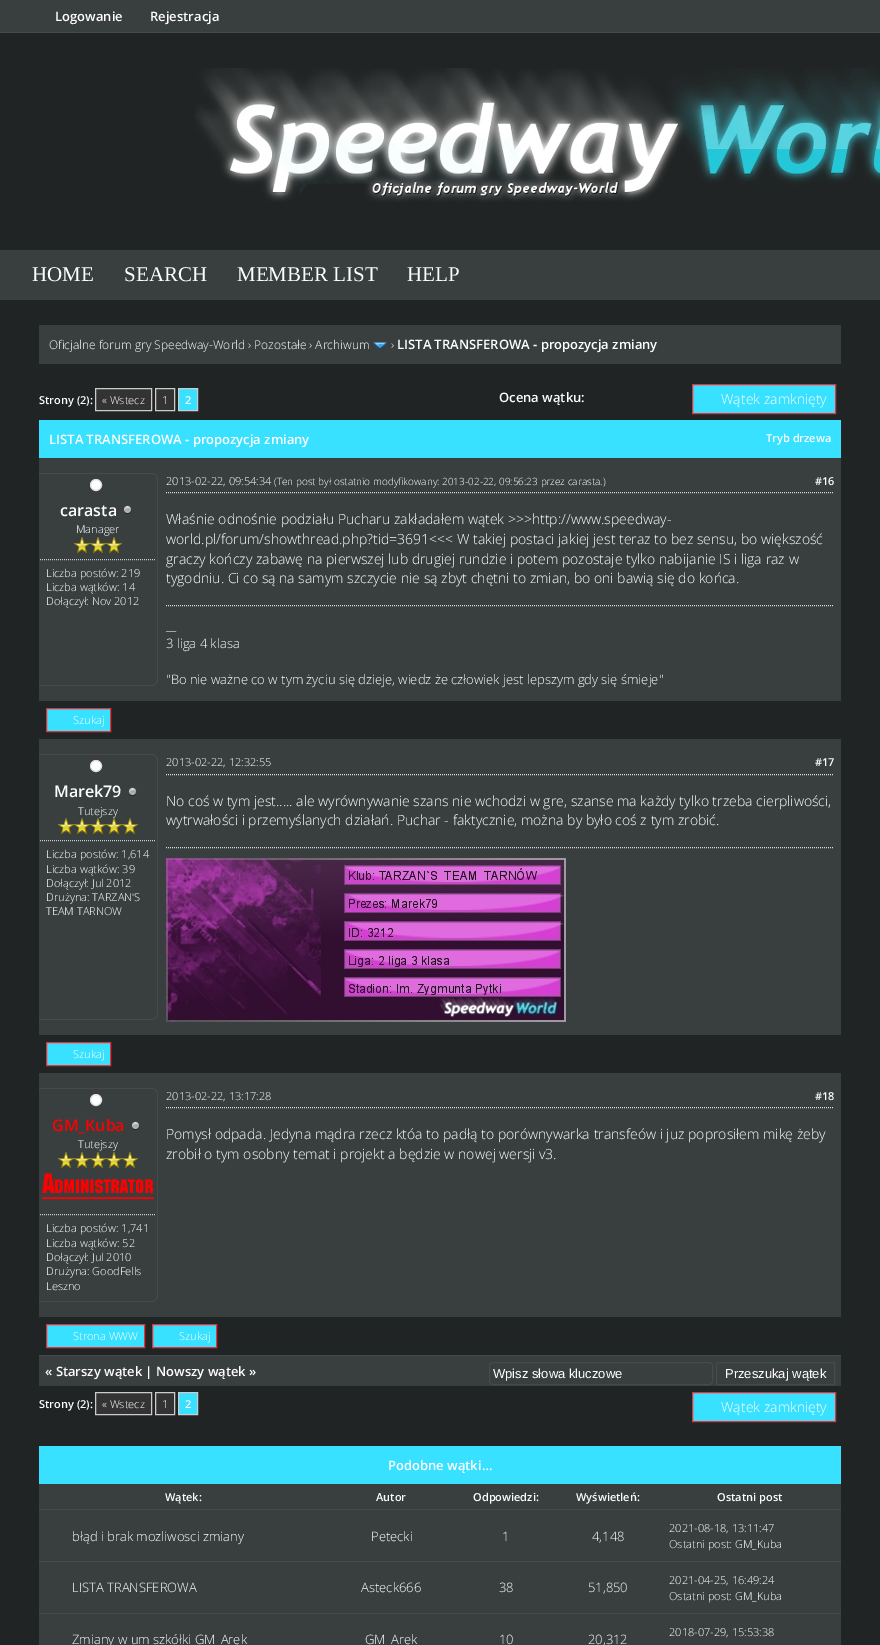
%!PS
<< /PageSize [880 1645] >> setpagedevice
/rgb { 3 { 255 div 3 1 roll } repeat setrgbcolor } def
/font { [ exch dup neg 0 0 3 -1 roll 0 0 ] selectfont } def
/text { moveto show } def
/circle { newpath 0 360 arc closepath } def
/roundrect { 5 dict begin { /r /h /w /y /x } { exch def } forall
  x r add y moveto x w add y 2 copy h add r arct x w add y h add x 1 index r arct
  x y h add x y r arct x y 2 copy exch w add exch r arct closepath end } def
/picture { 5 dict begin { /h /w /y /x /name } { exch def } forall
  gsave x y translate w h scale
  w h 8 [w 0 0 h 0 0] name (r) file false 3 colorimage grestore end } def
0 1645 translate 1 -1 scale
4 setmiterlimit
33 36 36 rgb
0 0 880 1645 rectfill
57 62 63 rgb
0 0 880 32 rectfill
69 75 76 rgb
0 32 880 1 rectfill
(img_01.rgb) 195 68 685 134 picture
57 62 63 rgb
0 250 880 50 rectfill
39 325 802 39 rectfill
(img_02.rgb) 373 342 14 7 picture
51 51 51 rgb
95.5 388.5 moveto 56 0 rlineto 0 22 rlineto -56 0 rlineto closepath gsave fill grestore
204 204 204 rgb
stroke
51 51 51 rgb
155.5 388.5 moveto 19 0 rlineto 0 22 rlineto -19 0 rlineto closepath gsave fill grestore
204 204 204 rgb
stroke
56 225 255 rgb
178.5 388.5 moveto 19 0 rlineto 0 22 rlineto -19 0 rlineto closepath gsave fill grestore
204 204 204 rgb
stroke
56 225 255 rgb
692.5 384.5 moveto 143 0 rlineto 0 29 rlineto -143 0 rlineto closepath gsave fill grestore
232 49 55 rgb
stroke
56 225 255 rgb
39 420 802 38 rectfill
57 62 63 rgb
39 458 802 243 rectfill
69 75 76 rgb
39 473 moveto 113 0 rlineto 3 0 6 3 6 6 rcurveto 0 201 rlineto 0 3 -3 6 -6 6 rcurveto -113 0 rlineto closepath 39 474 moveto 113 0 rlineto 3 0 5 2 5 5 rcurveto 0 201 rlineto 0 3 -2 5 -5 5 rcurveto -113 0 rlineto closepath eofill
255 255 255 rgb
96 485 5.5 circle gsave fill grestore
221 221 221 rgb
stroke
(img_03.rgb) 123 505 9 9 picture
(img_04.rgb) 74 537 16 16 picture
(img_04.rgb) 90 537 16 16 picture
(img_04.rgb) 106 537 16 16 picture
204 204 204 rgb
[1 1] 0 setdash
40 559.5 moveto 116 0 rlineto stroke
221 221 221 rgb
166 492.5 moveto 668 0 rlineto stroke
166 605.5 moveto 668 0 rlineto stroke
56 225 255 rgb
46.5 708.5 moveto 64 0 rlineto 0 23 rlineto -64 0 rlineto closepath gsave fill grestore
232 49 55 rgb
[] 0 setdash
stroke
57 62 63 rgb
39 739 802 296 rectfill
69 75 76 rgb
39 754 moveto 113 0 rlineto 3 0 6 3 6 6 rcurveto 0 254 rlineto 0 3 -3 6 -6 6 rcurveto -113 0 rlineto closepath 39 755 moveto 113 0 rlineto 3 0 5 2 5 5 rcurveto 0 254 rlineto 0 3 -2 5 -5 5 rcurveto -113 0 rlineto closepath eofill
255 255 255 rgb
96 766 5.5 circle gsave fill grestore
221 221 221 rgb
stroke
(img_03.rgb) 128 787 9 9 picture
(img_04.rgb) 58 818 16 16 picture
(img_04.rgb) 74 818 16 16 picture
(img_04.rgb) 90 818 16 16 picture
(img_04.rgb) 106 818 16 16 picture
(img_04.rgb) 122 818 16 16 picture
204 204 204 rgb
[1 1] 0 setdash
40 840.5 moveto 116 0 rlineto stroke
221 221 221 rgb
166 774.5 moveto 668 0 rlineto stroke
166 847.5 moveto 668 0 rlineto stroke
(img_05.rgb) 166 858 400 164 picture
56 225 255 rgb
46.5 1042.5 moveto 64 0 rlineto 0 23 rlineto -64 0 rlineto closepath gsave fill grestore
232 49 55 rgb
[] 0 setdash
stroke
57 62 63 rgb
39 1073 802 244 rectfill
69 75 76 rgb
39 1088 moveto 113 0 rlineto 3 0 6 3 6 6 rcurveto 0 202 rlineto 0 3 -3 6 -6 6 rcurveto -113 0 rlineto closepath 39 1089 moveto 113 0 rlineto 3 0 5 2 5 5 rcurveto 0 202 rlineto 0 3 -2 5 -5 5 rcurveto -113 0 rlineto closepath eofill
255 255 255 rgb
96 1100 5.5 circle gsave fill grestore
221 221 221 rgb
stroke
(img_03.rgb) 131 1121 9 9 picture
(img_04.rgb) 58 1152 16 16 picture
(img_04.rgb) 74 1152 16 16 picture
(img_04.rgb) 90 1152 16 16 picture
(img_04.rgb) 106 1152 16 16 picture
(img_04.rgb) 122 1152 16 16 picture
(img_06.rgb) 42 1173 113 27 picture
204 204 204 rgb
[1 1] 0 setdash
40 1214.5 moveto 116 0 rlineto stroke
221 221 221 rgb
166 1107.5 moveto 668 0 rlineto stroke
56 225 255 rgb
46.5 1324.5 moveto 98 0 rlineto 0 23 rlineto -98 0 rlineto closepath gsave fill grestore
232 49 55 rgb
[] 0 setdash
stroke
56 225 255 rgb
152.5 1324.5 moveto 64 0 rlineto 0 23 rlineto -64 0 rlineto closepath gsave fill grestore
232 49 55 rgb
stroke
57 62 63 rgb
39 1356 802 30 rectfill
69 75 76 rgb
39 1355 802 1 rectfill
489.5 1362.5 223 22 3.5 roundrect stroke
716.5 1362.5 118 22 rectstroke
51 51 51 rgb
95.5 1392.5 moveto 56 0 rlineto 0 22 rlineto -56 0 rlineto closepath gsave fill grestore
204 204 204 rgb
stroke
51 51 51 rgb
155.5 1392.5 moveto 19 0 rlineto 0 22 rlineto -19 0 rlineto closepath gsave fill grestore
204 204 204 rgb
stroke
56 225 255 rgb
178.5 1392.5 moveto 19 0 rlineto 0 22 rlineto -19 0 rlineto closepath gsave fill grestore
204 204 204 rgb
stroke
56 225 255 rgb
692.5 1392.5 moveto 143 0 rlineto 0 29 rlineto -143 0 rlineto closepath gsave fill grestore
232 49 55 rgb
stroke
56 225 255 rgb
39 1446 802 38 rectfill
57 62 63 rgb
39 1484 802 25 rectfill
39 1510 802 51 rectfill
69 75 76 rgb
39 1509 802 1 rectfill
57 62 63 rgb
39 1562 802 51 rectfill
69 75 76 rgb
39 1561 802 1 rectfill
57 62 63 rgb
39 1614 802 31 rectfill
69 75 76 rgb
39 1613 802 1 rectfill
/OpenSans-SemiBold 13 font
255 255 255 rgb
(Logowanie) 55 21 text
(Rejestracja) 150 21 text
/LiberationSerif-Regular 21 font
(HOME) 32 281 text
(SEARCH) 124 281 text
(MEMBER LIST) 237 281 text
(HELP) 407 281 text
/OpenSans-Light 12 font
(Oficjalne forum gry Speedway-World › Pozostałe › Archiwum) 49 349 text
(›) 391 349 text
/OpenSans-SemiBold 13 font
(LISTA TRANSFEROWA - propozycja zmiany) 397 349 text
/OpenSans-SemiBold 11 font
(Strony \(2\):) 39 404 text
/OpenSans-Light 11 font
(« Wstecz) 102 404 text
(1) 162 404 text
/OpenSans-SemiBold 11 font
(2) 185 404 text
/OpenSans-SemiBold 13 font
(Ocena wątku:) 499 402 text
/OpenSans-Light 14 font
(Wątek zamknięty) 721 404 text
/OpenSans-SemiBold 13 font
(LISTA TRANSFEROWA - propozycja zmiany) 49 444 text
/OpenSans-SemiBold 11 font
(Tryb drzewa) 766 442 text
/OpenSans-SemiBold 16 font
(carasta) 60 516 text
/OpenSans-Light 11 font
(Manager) 76 533 text
(Liczba postów: 219) 46 577 text
(Liczba wątków: 14) 46 591 text
(Dołączył: Nov 2012) 46 605 text
(2013-02-22, 09:54:34) 166 485 text
/OpenSans-Light 10 font
(\(Ten post był ostatnio modyfikowany: 2013-02-22, 09:56:23 przez carasta.\)) 274 485 text
/OpenSans-SemiBold 11 font
(#16) 815 485 text
/OpenSans-Light 14 font
(Właśnie odnośnie podziału Pucharu zakładałem wątek >>>http://www.speedway-) 166 524 text
(world.pl/forum/showthread.php?tid=3691<<< W takiej postaci jakiej jest teraz to bez sensu, bo większość) 166 544 text
(graczy kończy zabawę na pierwszej lub drugiej rundzie i potem pozostaje tylko nabijanie IS i liga raz w) 166 564 text
(tygodniu. Ci co są na samym szczycie nie są zbyt chętni to zmian, bo oni bawią się do końca.) 166 583 text
/OpenSans-Light 13 font
(__) 166 630 text
(3 liga 4 klasa) 166 648 text
("Bo nie ważne co w tym życiu się dzieje, wiedz że człowiek jest lepszym gdy się śmieje") 166 684 text
/OpenSans-Light 11 font
(Szukaj) 73 724 text
/OpenSans-SemiBold 16 font
(Marek79) 54 797 text
/OpenSans-Light 11 font
(Tutejszy) 78 815 text
(Liczba postów: 1,614) 46 858 text
(Liczba wątków: 39) 46 873 text
(Dołączył: Jul 2012) 46 887 text
(Drużyna: TARZAN'S) 46 901 text
(TEAM TARNOW) 46 915 text
(2013-02-22, 12:32:55) 166 766 text
/OpenSans-SemiBold 11 font
(#17) 815 766 text
/OpenSans-Light 14 font
(No coś w tym jest..... ale wyrównywanie szans nie wchodzi w gre, szanse ma każdy tylko trzeba cierpliwości,) 166 806 text
(wytrwałości i przemyślanych działań. Puchar - faktycznie, można by było coś z tym zrobić.) 166 825 text
/OpenSans-Light 11 font
(Szukaj) 73 1058 text
/OpenSans-SemiBold 16 font
255 0 0 rgb
(GM_Kuba) 52 1131 text
/OpenSans-Light 11 font
255 255 255 rgb
(Tutejszy) 78 1148 text
(Liczba postów: 1,741) 46 1232 text
(Liczba wątków: 52) 46 1247 text
(Dołączył: Jul 2010) 46 1261 text
(Drużyna: GoodFells) 46 1275 text
(Leszno) 46 1290 text
(2013-02-22, 13:17:28) 166 1100 text
/OpenSans-SemiBold 11 font
(#18) 815 1100 text
/OpenSans-Light 14 font
(Pomysł odpada. Jedyna mądra rzecz któa to padłą to porównywarka transfeów i juz poprosiłem mikę żeby) 166 1139 text
(zrobił o tym osobny temat i projekt a będzie w nowej wersji v3.) 166 1159 text
/OpenSans-Light 11 font
(Strona WWW) 73 1340 text
(Szukaj) 179 1340 text
/OpenSans-SemiBold 13 font
(« Starszy wątek | Nowszy wątek ») 45 1376 text
/LiberationSans-Regular 13 font
(Wpisz słowa kluczowe) 493 1378 text
(Przeszukaj wątek) 725 1378 text
/OpenSans-SemiBold 11 font
(Strony \(2\):) 39 1408 text
/OpenSans-Light 11 font
(« Wstecz) 102 1408 text
(1) 162 1408 text
/OpenSans-SemiBold 11 font
(2) 185 1408 text
/OpenSans-Light 14 font
(Wątek zamknięty) 721 1412 text
/OpenSans-SemiBold 13 font
(Podobne wątki…) 388 1470 text
/OpenSans-SemiBold 11 font
(Wątek:) 165 1501 text
(Autor) 376 1501 text
(Odpowiedzi:) 473 1501 text
(Wyświetleń:) 576 1501 text
(Ostatni post) 717 1501 text
/OpenSans-Light 13 font
(błąd i brak mozliwosci zmiany) 72 1541 text
(Petecki) 371 1541 text
(1) 502 1541 text
(4,148) 592 1541 text
/OpenSans-Light 11 font
(2021-08-18, 13:11:47) 669 1532 text
(Ostatni post: GM_Kuba) 669 1548 text
/OpenSans-Light 13 font
(LISTA TRANSFEROWA) 72 1592 text
(Asteck666) 361 1592 text
(38) 499 1592 text
(51,850) 588 1592 text
/OpenSans-Light 11 font
(2021-04-25, 16:49:24) 669 1584 text
(Ostatni post: GM_Kuba) 669 1600 text
(2018-07-29, 15:53:38) 669 1636 text
/OpenSans-Light 13 font
(Zmiany w um szkółki GM_Arek) 72 1644 text
(GM_Arek) 365 1644 text
(10) 499 1644 text
(20,312) 588 1644 text
showpage
